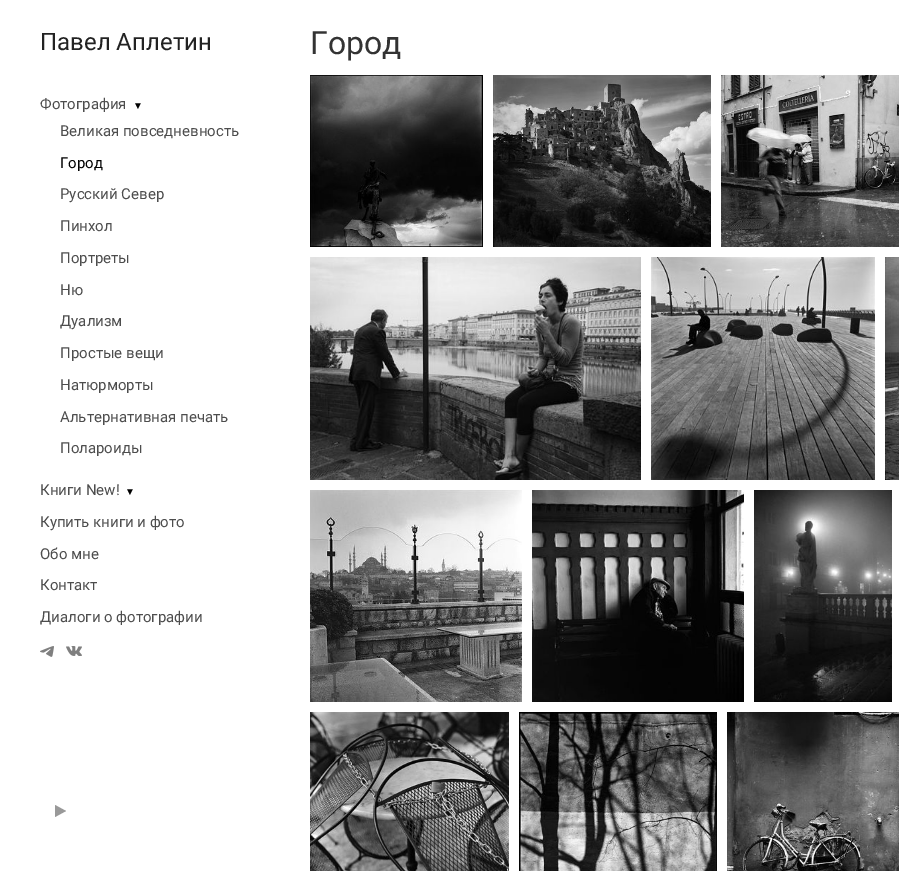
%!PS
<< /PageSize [899 871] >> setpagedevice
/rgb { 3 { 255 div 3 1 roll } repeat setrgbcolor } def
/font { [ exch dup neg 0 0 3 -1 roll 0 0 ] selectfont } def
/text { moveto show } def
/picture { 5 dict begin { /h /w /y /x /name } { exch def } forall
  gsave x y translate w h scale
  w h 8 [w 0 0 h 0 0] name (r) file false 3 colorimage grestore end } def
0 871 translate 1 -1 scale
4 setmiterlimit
255 255 255 rgb
0 0 899 871 rectfill
(img_01.rgb) 40 646 14 11 picture
(img_02.rgb) 66 646 16 10 picture
153 153 153 rgb
66 811 moveto -11 6 rlineto 0 -12 rlineto closepath fill
(img_03.rgb) 310 75 173 172 picture
(img_04.rgb) 493 75 218 172 picture
(img_05.rgb) 721 75 178 172 picture
(img_06.rgb) 310 257 331 223 picture
(img_07.rgb) 651 257 224 223 picture
(img_08.rgb) 885 257 14 223 picture
(img_09.rgb) 310 490 212 212 picture
(img_10.rgb) 532 490 212 212 picture
(img_11.rgb) 754 490 138 212 picture
(img_12.rgb) 310 712 199 159 picture
(img_13.rgb) 519 712 198 159 picture
(img_14.rgb) 727 712 172 159 picture
/Roboto-Regular 24 font
34 34 34 rgb
(Павел Аплетин) 40 50 text
/Roboto-Regular 15 font
77 77 77 rgb
(Фотография) 40 109 text
/LiberationSerif-Regular 10 font
0 0 0 rgb
(▼) 133 109 text
/Roboto-Regular 15 font
77 77 77 rgb
(Великая повседневность) 60 136 text
0 0 0 rgb
(Город) 60 168 text
77 77 77 rgb
(Русский Север) 60 199 text
(Пинхол) 60 231 text
(Портреты) 60 263 text
(Ню) 60 295 text
(Дуализм) 60 326 text
(Простые вещи) 60 358 text
(Натюрморты) 60 390 text
(Альтернативная печать) 60 422 text
(Полароиды) 60 453 text
(Книги New!) 40 495 text
/LiberationSerif-Regular 10 font
0 0 0 rgb
(▼) 125 495 text
/Roboto-Regular 15 font
77 77 77 rgb
(Купить книги и фото) 40 527 text
(Обо мне) 40 559 text
(Контакт) 40 590 text
(Диалоги о фотографии) 40 622 text
/Roboto-Regular 32 font
51 51 51 rgb
(Город) 310 54 text
showpage
